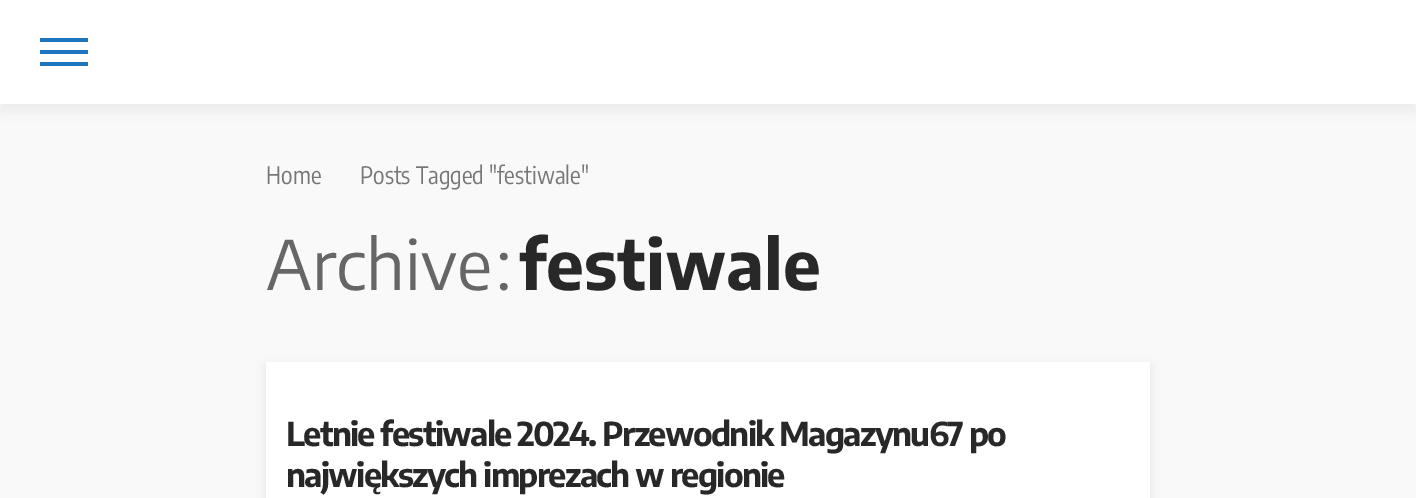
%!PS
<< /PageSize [1416 498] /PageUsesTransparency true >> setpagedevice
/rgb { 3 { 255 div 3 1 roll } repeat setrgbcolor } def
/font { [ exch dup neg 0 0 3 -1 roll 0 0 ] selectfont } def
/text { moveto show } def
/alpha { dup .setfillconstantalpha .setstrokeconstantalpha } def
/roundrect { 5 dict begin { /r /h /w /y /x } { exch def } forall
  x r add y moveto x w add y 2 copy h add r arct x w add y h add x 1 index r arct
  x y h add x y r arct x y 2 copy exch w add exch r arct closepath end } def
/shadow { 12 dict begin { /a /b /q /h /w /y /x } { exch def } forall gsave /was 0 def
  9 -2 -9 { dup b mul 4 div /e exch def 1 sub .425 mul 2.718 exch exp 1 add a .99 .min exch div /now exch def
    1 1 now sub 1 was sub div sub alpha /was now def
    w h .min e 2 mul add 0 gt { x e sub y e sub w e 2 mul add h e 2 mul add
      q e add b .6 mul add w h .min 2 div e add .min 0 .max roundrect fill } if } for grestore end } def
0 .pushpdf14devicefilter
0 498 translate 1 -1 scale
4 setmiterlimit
249 249 249 rgb
0 0 1416 498 rectfill
28 28 28 rgb
0 8 1416 104 0 6 0.05 shadow
255 255 255 rgb
0 0 1416 104 rectfill
30 115 190 rgb
40 50 48 4 rectfill
40 38 48 4 rectfill
40 62 48 4 rectfill
0 0 0 rgb
266 366 884 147 0 5 0.1 shadow
255 255 255 rgb
266 362 884 136 rectfill
/EncodeSansCondensed-Regular 24 font
119 119 119 rgb
(Home) 266 184 text
(Posts Tagged "festiwale") 360 184 text
/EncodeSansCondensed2-Regular 68 font
102 102 102 rgb
(Archive) 266 290 text
(:) 496 290 text
/EncodeSansCondensed-Bold 68 font
40 40 40 rgb
(festiwale) 519 290 text
/EncodeSansCondensed-Bold 32.75 font
286 446 moveto -1.7 0 (Letnie festiwale 2024. Przewodnik Magazynu67 po) ashow
286 487 moveto -1.7 0 (największych imprezach w regionie) ashow
.poppdf14devicefilter showpage
